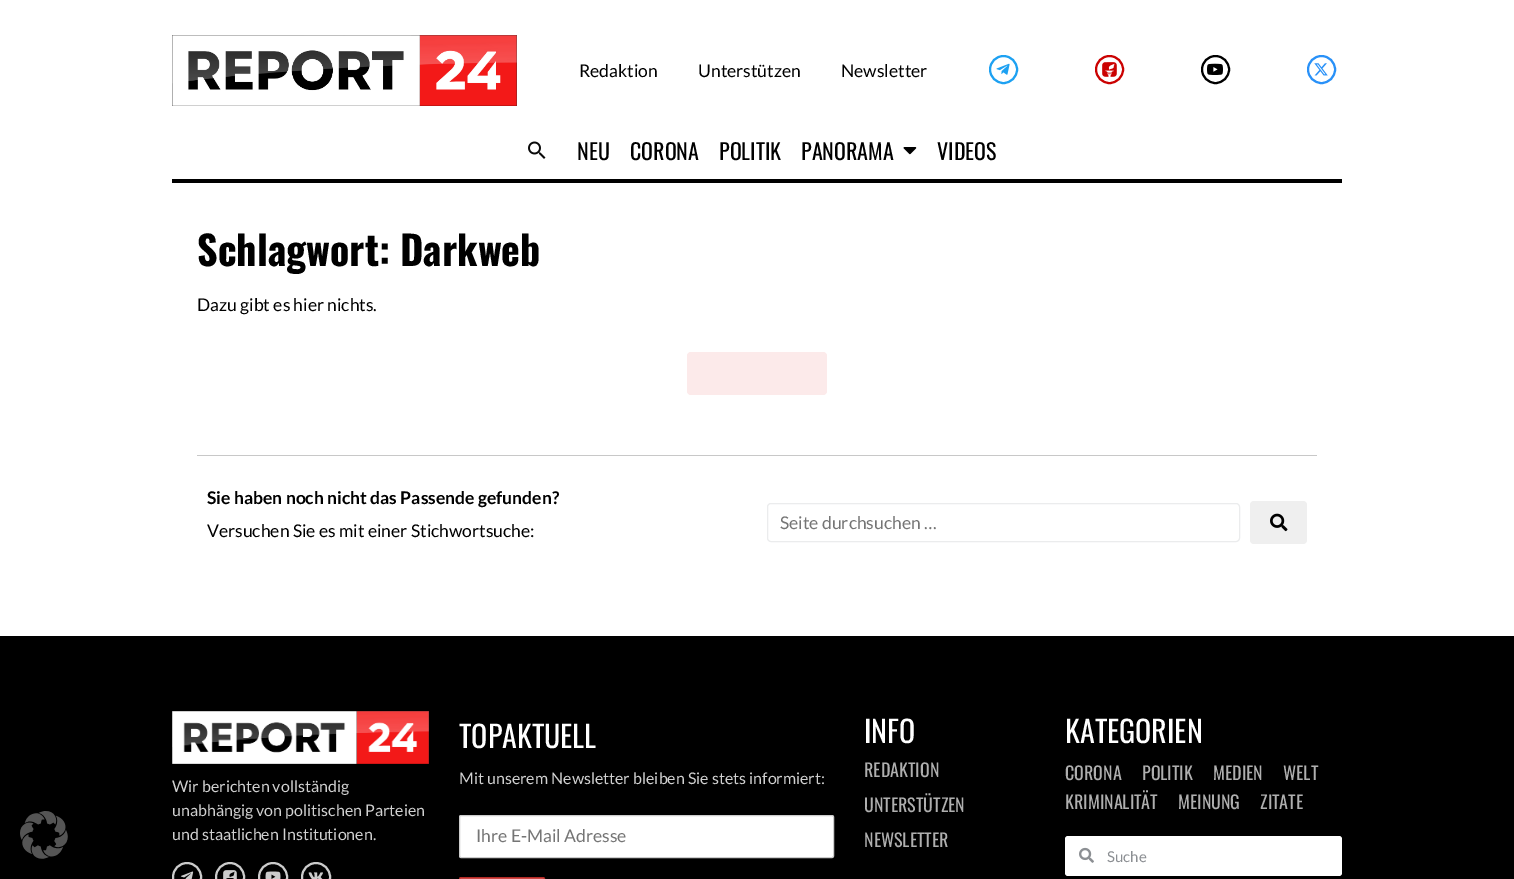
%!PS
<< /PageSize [1514 879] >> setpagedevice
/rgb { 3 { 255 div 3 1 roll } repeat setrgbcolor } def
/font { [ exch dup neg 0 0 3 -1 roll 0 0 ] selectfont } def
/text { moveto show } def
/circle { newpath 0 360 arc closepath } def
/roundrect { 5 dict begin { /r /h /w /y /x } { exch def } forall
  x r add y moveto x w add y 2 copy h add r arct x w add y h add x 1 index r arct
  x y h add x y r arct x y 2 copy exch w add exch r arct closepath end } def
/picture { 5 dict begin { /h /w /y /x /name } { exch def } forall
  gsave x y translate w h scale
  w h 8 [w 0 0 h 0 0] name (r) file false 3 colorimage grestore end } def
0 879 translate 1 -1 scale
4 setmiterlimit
255 255 255 rgb
0 0 1514 879 rectfill
0 0 0 rgb
0 636 1514 243 rectfill
(img_01.rgb) 20 811 48 48 picture
(img_02.rgb) 172 35 345 71 picture
29 161 242 rgb
2 setlinewidth
1003.5 69.5 13.5 circle stroke
(img_03.rgb) 996 63 14 12 picture
203 2 2 rgb
1109.5 69.5 13.5 circle stroke
(img_04.rgb) 1102 62 15 15 picture
0 0 0 rgb
1215.5 69.5 13.5 circle stroke
(img_05.rgb) 1207 63 16 12 picture
41 145 248 rgb
1321.5 69.5 13.5 circle stroke
(img_06.rgb) 1314 63 14 13 picture
(img_07.rgb) 528 141 18 18 picture
(img_08.rgb) 903 147 14 8 picture
0 0 0 rgb
172 179 1170 4 rectfill
252 234 234 rgb
687 352 140 43 4 roundrect fill
200 200 200 rgb
197 455 1120 1 rectfill
235 236 237 rgb
1 setlinewidth
767.5 503.5 472 38 3.5 roundrect stroke
239 239 239 rgb
1250 501 57 43 4 roundrect fill
(img_09.rgb) 1270 513 18 19 picture
(img_10.rgb) 172 711 257 53 picture
203 203 203 rgb
2 setlinewidth
187 877 14 circle stroke
(img_11.rgb) 180 871 14 8 picture
230 877 14 circle stroke
(img_12.rgb) 223 870 14 9 picture
273 877 14 circle stroke
(img_13.rgb) 265 871 16 8 picture
316 877 14 circle stroke
(img_14.rgb) 308 872 15 7 picture
255 255 255 rgb
459.5 815.5 374 42 1.5 roundrect gsave fill grestore
204 204 204 rgb
1 setlinewidth
stroke
217 83 79 rgb
459.5 877.5 85 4 1.5 roundrect gsave fill grestore
181 43 39 rgb
stroke
255 255 255 rgb
1065 836 277 40 3 roundrect fill
(img_15.rgb) 1079 847 15 16 picture
/Lato-Regular 17.5 font
0 0 0 rgb
(Redaktion) 579 77 text
(Unterstützen) 698 77 text
(Newsletter) 841 77 text
/Oswald-Regular 22 font
(NEU) 577 160 text
(CORONA) 630 160 text
(POLITIK) 719 160 text
(PANORAMA) 801 160 text
(VIDEOS) 937 160 text
/Oswald-Bold 40 font
(Schlagwort: Darkweb) 197 266 text
/Lato-Regular 17.5 font
(Dazu gibt es hier nichts.) 197 311 text
/Lato-Bold 17.5 font
(Sie haben noch nicht das Passende gefunden?) 207 504 text
/Lato-Regular 17.5 font
(Versuchen Sie es mit einer Stichwortsuche:) 207 537 text
117 117 117 rgb
(Seite durchsuchen …) 780 529 text
/Lato-Regular 16 font
208 208 208 rgb
(Wir berichten vollständig) 172 792 text
(unabhängig von politischen Parteien) 172 816 text
(und staatlichen Institutionen.) 172 840 text
/Oswald-Regular 30 font
255 255 255 rgb
(TOPAKTUELL) 459 748 text
/Lato-Regular 16 font
208 208 208 rgb
(Mit unserem Newsletter bleiben Sie stets informiert:) 459 784 text
/Lato-Regular 17.5 font
117 117 117 rgb
(Ihre E-Mail Adresse) 476 842 text
/Oswald-Regular 30 font
255 255 255 rgb
(INFO) 864 743 text
/Oswald-Regular 18 font
175 175 175 rgb
(REDAKTION) 864 777 text
(UNTERSTÜTZEN) 864 812 text
(NEWSLETTER) 864 847 text
/Oswald-Regular 30 font
255 255 255 rgb
(KATEGORIEN) 1065 743 text
/Oswald-Regular 18 font
175 175 175 rgb
(CORONA) 1065 780 text
(POLITIK) 1142 780 text
(MEDIEN) 1213 780 text
(WELT) 1283 780 text
(KRIMINALITÄT) 1065 809 text
(MEINUNG) 1178 809 text
(ZITATE) 1260 809 text
/Lato-Regular 15 font
140 143 147 rgb
(Suche) 1107 862 text
showpage
